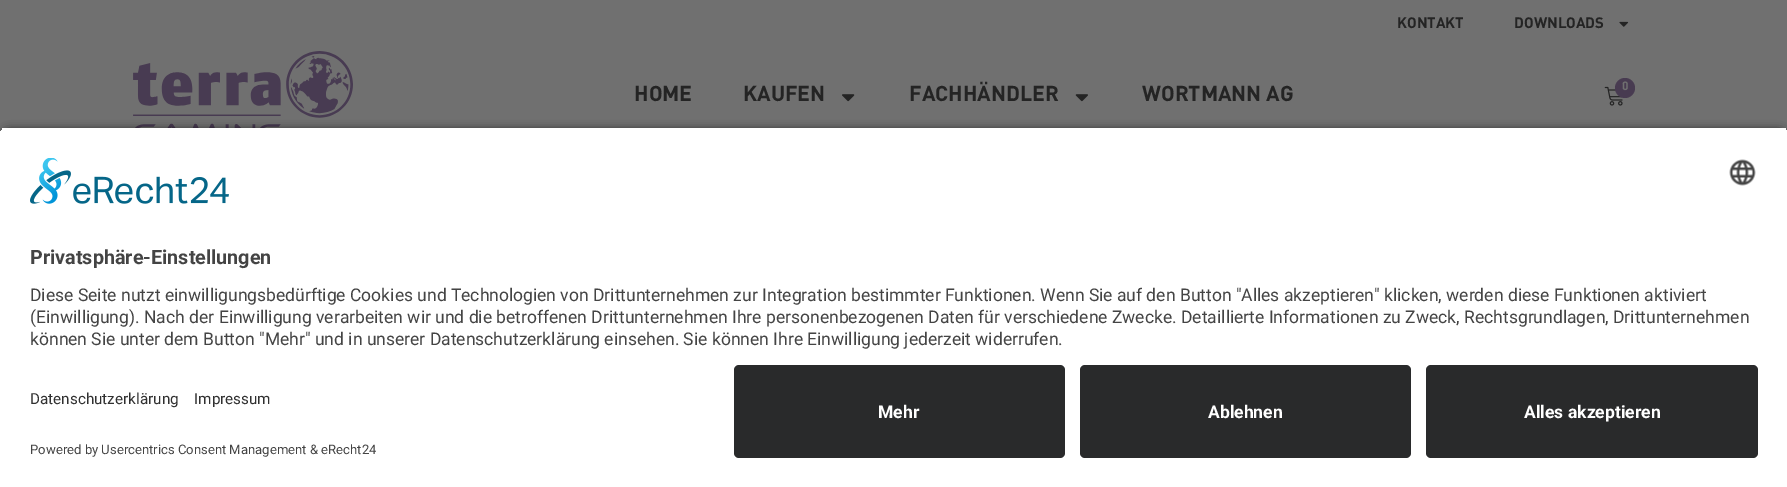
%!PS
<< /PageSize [1787 487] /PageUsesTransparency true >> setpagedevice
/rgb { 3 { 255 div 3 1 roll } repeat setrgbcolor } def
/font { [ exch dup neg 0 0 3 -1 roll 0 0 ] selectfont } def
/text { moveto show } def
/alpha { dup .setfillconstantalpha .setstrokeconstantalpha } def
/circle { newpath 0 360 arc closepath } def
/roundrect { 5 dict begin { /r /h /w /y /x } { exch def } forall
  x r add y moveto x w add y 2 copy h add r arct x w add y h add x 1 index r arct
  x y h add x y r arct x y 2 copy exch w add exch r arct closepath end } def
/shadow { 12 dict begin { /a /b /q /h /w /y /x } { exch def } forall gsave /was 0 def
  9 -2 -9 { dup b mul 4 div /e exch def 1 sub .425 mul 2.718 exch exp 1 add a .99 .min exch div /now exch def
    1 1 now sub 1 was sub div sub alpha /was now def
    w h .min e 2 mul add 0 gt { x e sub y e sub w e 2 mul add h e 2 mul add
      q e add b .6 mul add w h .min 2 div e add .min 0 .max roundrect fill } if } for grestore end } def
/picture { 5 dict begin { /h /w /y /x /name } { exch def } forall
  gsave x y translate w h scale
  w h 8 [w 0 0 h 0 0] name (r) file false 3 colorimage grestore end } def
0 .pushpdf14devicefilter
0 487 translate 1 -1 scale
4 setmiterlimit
112 112 112 rgb
0 0 1787 487 rectfill
(img_01.rgb) 1619 21 10 6 picture
(img_02.rgb) 133 51 220 77 picture
(img_03.rgb) 842 94 13 8 picture
(img_04.rgb) 1075 94 13 8 picture
(img_05.rgb) 1604 86 19 20 picture
72 59 81 rgb
1625 88 10 circle fill
0 0 0 rgb
0 130 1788 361 10 4.5 0.8 shadow
gsave
10 126 moveto 1768 0 rlineto 5.5 0 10 4.5 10 10 rcurveto 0 219 rlineto -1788 0 rlineto 0 -219 rlineto 0 -5.5 4.5 -10 10 -10 rcurveto closepath clip newpath
255 255 255 rgb
0 128 1787 227 rectfill
grestore
(img_06.rgb) 30 158 199 46 picture
(img_07.rgb) 1729 159 27 27 picture
255 255 255 rgb
0 355 1787 132 rectfill
41 42 43 rgb
734 365 331 93 5 roundrect fill
1080 365 331 93 5 roundrect fill
1426 365 332 93 5 roundrect fill
/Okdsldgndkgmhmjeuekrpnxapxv-Bold 15 font
36 36 36 rgb
(KONTAKT) 1397 28 text
(DOWNLOADS) 1514 28 text
/Okdsldgndkgmhmjeuekrpnxapxv-Bold 21.25 font
(HOME) 634 101 text
(KAUFEN) 743 101 text
(FACHHÄNDLER) 909 101 text
(WORTMANN AG) 1142 101 text
/Okdsldgndkgmhmjeuekrpnxapxv-Bold 12 font
112 112 112 rgb
(0) 1622 90 text
/Roboto-Bold 19.75 font
68 68 68 rgb
(Privatsphäre-Einstellungen) 30 264 text
/Roboto-Regular 17.5 font
(Diese Seite nutzt einwilligungsbedürftige Cookies und Technologien von Drittunternehmen zur Integration bestimmter Funktionen. Wenn Sie auf den Button "Alles akzeptieren" klicken, werden diese Funktionen aktiviert) 30 301 text
(\(Einwilligung\). Nach der Einwilligung verarbeiten wir und die betroffenen Drittunternehmen Ihre personenbezogenen Daten für verschiedene Zwecke. Detaillierte Informationen zu Zweck, Rechtsgrundlagen, Drittunternehmen) 30 323 text
(können Sie unter dem Button "Mehr" und in unserer Datenschutzerklärung einsehen. Sie können Ihre Einwilligung jederzeit widerrufen.) 30 345 text
/Roboto-Regular 15.25 font
48 48 48 rgb
(Datenschutzerklärung) 30 404 text
(Impressum) 194 404 text
/Roboto-Regular 13.1 font
68 68 68 rgb
(Powered by Usercentrics Consent Management & eRecht24) 30 454 text
/Roboto-Bold 17.5 font
255 255 255 rgb
(Mehr) 878 418 text
(Ablehnen) 1208 418 text
(Alles akzeptieren) 1524 418 text
.poppdf14devicefilter showpage
